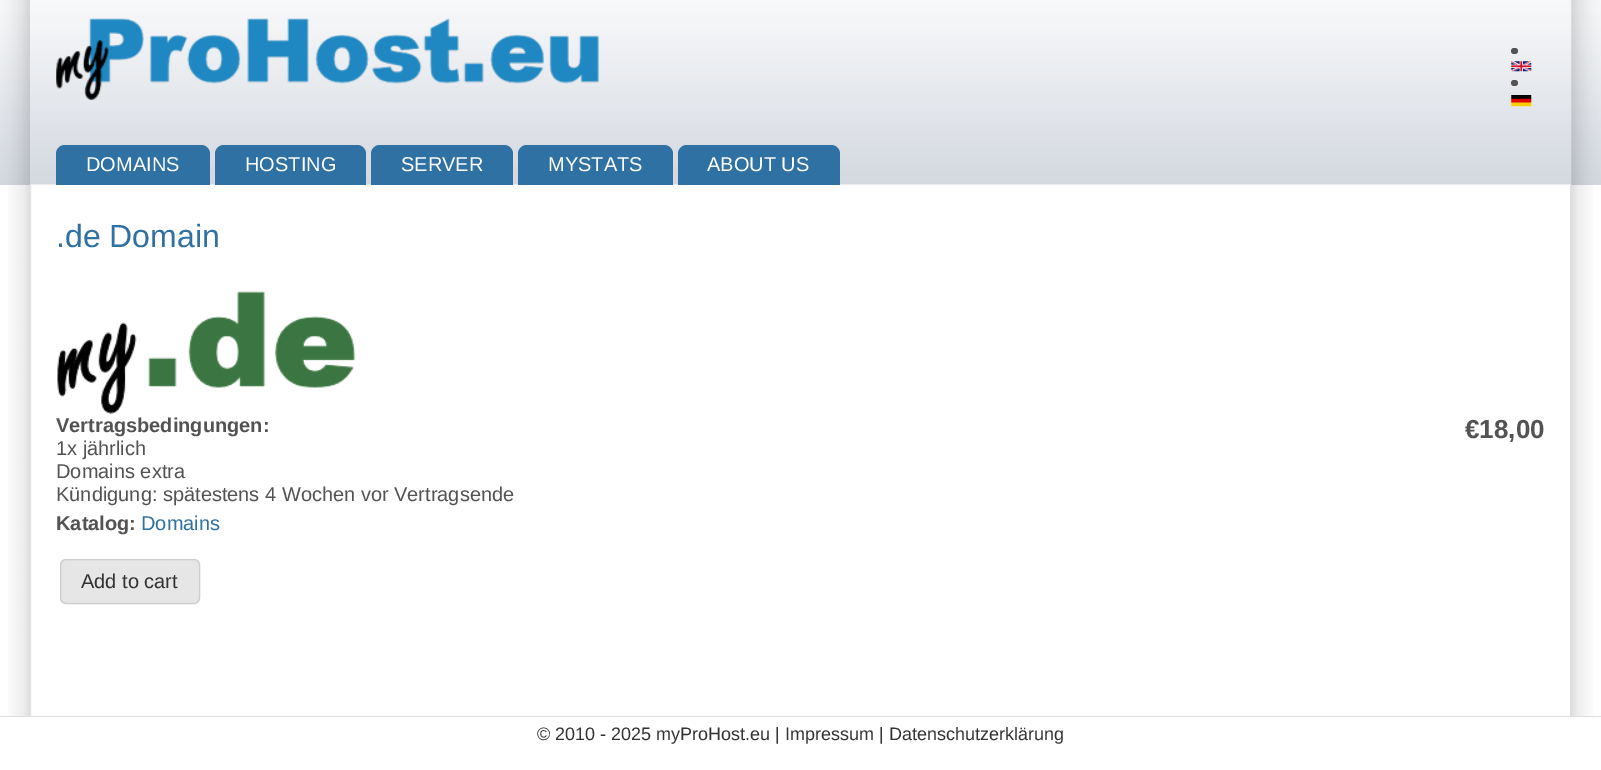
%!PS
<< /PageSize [1601 770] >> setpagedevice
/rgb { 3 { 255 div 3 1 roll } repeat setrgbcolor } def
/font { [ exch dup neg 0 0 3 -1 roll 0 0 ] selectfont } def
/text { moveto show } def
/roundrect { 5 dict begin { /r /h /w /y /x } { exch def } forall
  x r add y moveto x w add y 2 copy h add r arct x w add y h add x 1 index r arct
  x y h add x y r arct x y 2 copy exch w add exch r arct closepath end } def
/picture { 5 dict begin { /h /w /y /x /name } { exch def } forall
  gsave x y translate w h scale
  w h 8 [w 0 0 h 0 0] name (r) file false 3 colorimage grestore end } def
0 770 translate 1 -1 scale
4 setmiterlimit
255 255 255 rgb
0 0 1601 770 rectfill
(img_01.rgb) 30 0 1542 185 picture
(img_02.rgb) 0 0 30 185 picture
(img_03.rgb) 1571 0 30 185 picture
(img_04.rgb) 56 18 543 82 picture
83 83 83 rgb
1511 48 7 6 3 roundrect fill
(img_05.rgb) 1511 61 21 11 picture
1511 80 7 6 3 roundrect fill
(img_06.rgb) 1511 95 21 12 picture
47 113 162 rgb
65 145 moveto 136 0 rlineto 5 0 9 4 9 9 rcurveto 0 31 rlineto -154 0 rlineto 0 -31 rlineto 0 -5 4 -9 9 -9 rcurveto closepath fill
224 145 moveto 133 0 rlineto 5 0 9 4 9 9 rcurveto 0 31 rlineto -151 0 rlineto 0 -31 rlineto 0 -5 4 -9 9 -9 rcurveto closepath fill
380 145 moveto 124 0 rlineto 5 0 9 4 9 9 rcurveto 0 31 rlineto -142 0 rlineto 0 -31 rlineto 0 -5 4 -9 9 -9 rcurveto closepath fill
527 145 moveto 137 0 rlineto 5 0 9 4 9 9 rcurveto 0 31 rlineto -155 0 rlineto 0 -31 rlineto 0 -5 4 -9 9 -9 rcurveto closepath fill
687 145 moveto 144 0 rlineto 5 0 9 4 9 9 rcurveto 0 31 rlineto -162 0 rlineto 0 -31 rlineto 0 -5 4 -9 9 -9 rcurveto closepath fill
221 221 221 rgb
0 716 1601 1 rectfill
(img_07.rgb) 8 185 24 531 picture
(img_08.rgb) 1570 185 23 531 picture
(img_09.rgb) 57 291 299 123 picture
230 230 230 rgb
60.5 559.5 139 44 5.5 roundrect gsave fill grestore
204 204 204 rgb
stroke
/LiberationSans-Regular 20 font
255 255 255 rgb
(DOMAINS) 86 171 text
(HOSTING) 245 171 text
(SERVER) 401 171 text
(MYSTATS) 548 171 text
(ABOUT US) 707 171 text
/LiberationSans-Regular 32 font
47 113 162 rgb
(.de Domain) 56 247 text
/LiberationSans-Bold 20 font
83 83 83 rgb
(Vertragsbedingungen:) 56 432 text
/LiberationSans-Regular 20 font
(1x jährlich) 56 455 text
(Domains extra) 56 478 text
(Kündigung: spätestens 4 Wochen vor Vertragsende) 56 501 text
/LiberationSans-Bold 26 font
(€18,00) 1465 438 text
/LiberationSans-Bold 20 font
(Katalog:) 56 530 text
/LiberationSans-Regular 20 font
47 113 162 rgb
(Domains) 141 530 text
51 51 51 rgb
(Add to cart) 81 588 text
/LiberationSans-Regular 18 font
(© 2010 - 2025 myProHost.eu | Impressum | Datenschutzerklärung) 537 740 text
showpage
